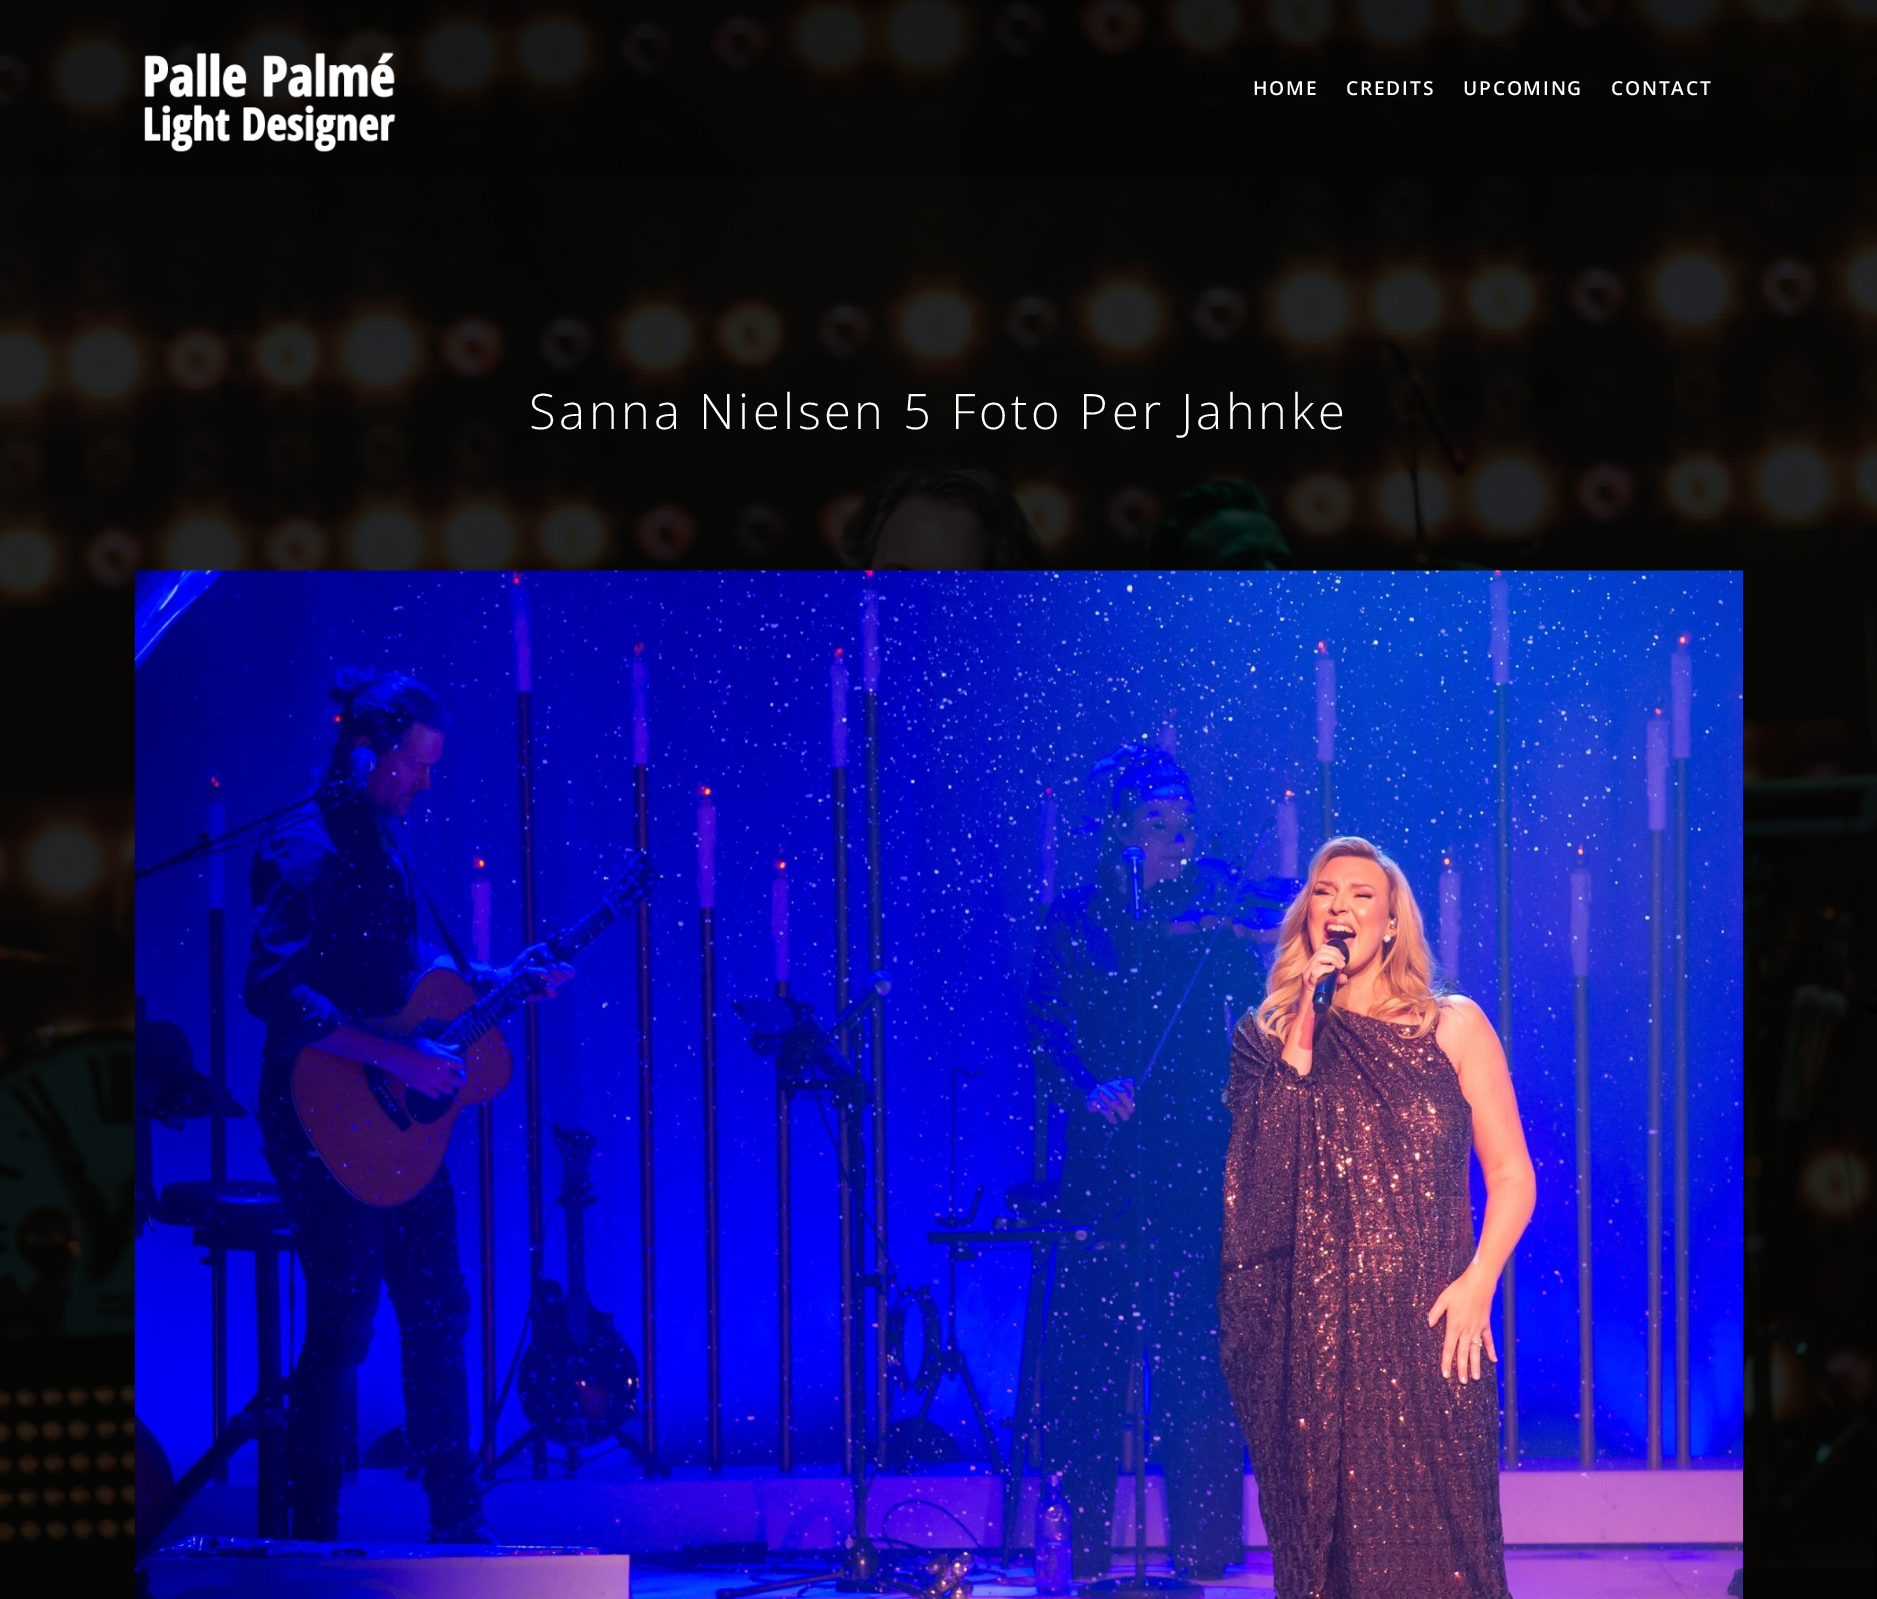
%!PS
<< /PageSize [1877 1599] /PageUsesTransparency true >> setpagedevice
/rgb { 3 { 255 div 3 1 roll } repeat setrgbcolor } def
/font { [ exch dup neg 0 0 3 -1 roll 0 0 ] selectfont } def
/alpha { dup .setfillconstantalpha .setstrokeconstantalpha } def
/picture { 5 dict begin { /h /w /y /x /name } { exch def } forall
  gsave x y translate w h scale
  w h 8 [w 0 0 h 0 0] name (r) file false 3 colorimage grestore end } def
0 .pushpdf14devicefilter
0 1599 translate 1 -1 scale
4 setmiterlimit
255 255 255 rgb
0 0 1877 1599 rectfill
(img_01.rgb) 0 0 1877 1599 picture
0.3 alpha
0 0 0 rgb
0 0 1877 175 rectfill
1 alpha
(img_02.rgb) 144 52 252 100 picture
(img_03.rgb) 134 570 1609 1029 picture
/OpenSans-SemiBold 19.25 font
255 255 255 rgb
1253 95 moveto 1.75 0 (HOME) ashow
1346 95 moveto 1.75 0 (CREDITS) ashow
1463 95 moveto 1.75 0 (UPCOMING) ashow
1611 95 moveto 1.75 0 (CONTACT) ashow
/OpenSans-Light 49 font
529 429 moveto 3.5 0 (Sanna Nielsen 5 Foto Per Jahnke) ashow
.poppdf14devicefilter showpage
